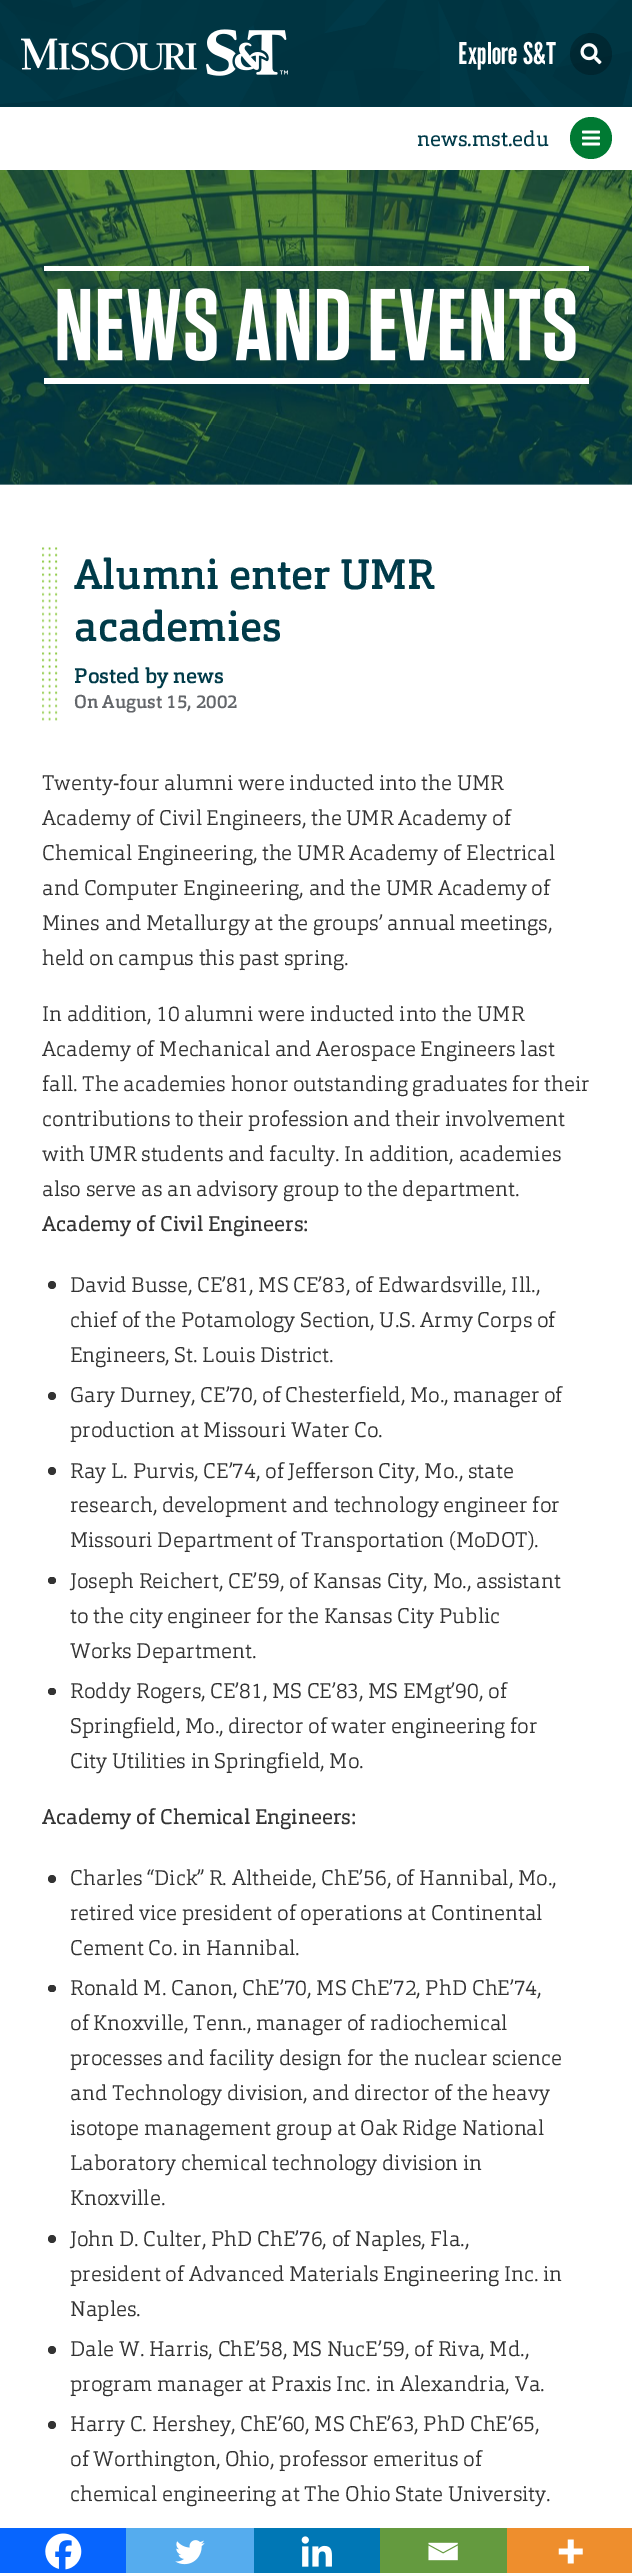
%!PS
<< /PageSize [632 2573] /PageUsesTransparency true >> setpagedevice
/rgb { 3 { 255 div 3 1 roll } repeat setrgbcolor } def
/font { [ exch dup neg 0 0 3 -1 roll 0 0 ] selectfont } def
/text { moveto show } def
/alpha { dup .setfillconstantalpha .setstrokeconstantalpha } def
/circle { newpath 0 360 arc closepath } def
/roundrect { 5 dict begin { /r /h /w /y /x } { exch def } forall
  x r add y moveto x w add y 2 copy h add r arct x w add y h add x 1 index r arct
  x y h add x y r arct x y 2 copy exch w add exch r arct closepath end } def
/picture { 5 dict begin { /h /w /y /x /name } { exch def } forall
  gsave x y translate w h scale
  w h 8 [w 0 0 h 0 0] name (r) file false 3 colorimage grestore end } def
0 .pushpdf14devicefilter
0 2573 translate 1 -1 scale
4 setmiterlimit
255 255 255 rgb
0 0 632 2573 rectfill
179 196 200 rgb
0 484 632 1 rectfill
0 59 73 rgb
0 106 632 1 rectfill
(img_01.rgb) 0 0 632 107 picture
(img_02.rgb) 21 29 267 47 picture
0.25 alpha
0 0 0 rgb
591 54 21 circle fill
1 alpha
(img_03.rgb) 580 43 22 22 picture
0 122 51 rgb
591 138 21 circle fill
(img_04.rgb) 582 130 18 16 picture
(img_05.rgb) 0 170 632 315 picture
(img_06.rgb) 44 266 545 118 picture
(img_07.rgb) 42 547 16 174 picture
51 51 51 rgb
52 1285 4 circle fill
52 1396 4 circle fill
52 1471 4 circle fill
48 1577 8 7 3.5 roundrect fill
48 1688 8 7 3.5 roundrect fill
52 1879 4 circle fill
48 1985 8 7 3.5 roundrect fill
52 2239 4 circle fill
52 2350 4 circle fill
52 2425 4 circle fill
7 101 254 rgb
0 2528 126 45 rectfill
(img_08.rgb) 45 2533 37 37 picture
85 172 238 rgb
126 2528 128 45 rectfill
(img_09.rgb) 175 2540 30 25 picture
0 119 181 rgb
254 2528 126 45 rectfill
(img_10.rgb) 301 2536 31 31 picture
100 154 63 rgb
380 2528 127 45 rectfill
(img_11.rgb) 428 2542 30 19 picture
238 142 45 rgb
507 2528 125 45 rectfill
(img_12.rgb) 558 2539 25 25 picture
/LeagueGothic-Regular 30 font
255 255 255 rgb
458 64 moveto 0.25 0 (Explore S&T) ashow
/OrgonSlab-Regular 21 font
0 59 73 rgb
(news.mst.edu) 417 146 text
/OrgonSlab-Medium 42 font
(Alumni enter UMR) 74 589 text
(academies) 74 641 text
/OrgonSlab-Medium 21 font
(Posted by news) 74 683 text
/OrgonSlab-Medium 18.4 font
99 102 106 rgb
(On August 15, 2002) 74 708 text
/OrgonSlab-Light 21 font
51 51 51 rgb
(Twenty-four alumni were inducted into the UMR) 42 790 text
(Academy of Civil Engineers, the UMR Academy of) 42 825 text
(Chemical Engineering, the UMR Academy of Electrical) 42 860 text
(and Computer Engineering, and the UMR Academy of) 42 895 text
(Mines and Metallurgy at the groups’ annual meetings,) 42 930 text
(held on campus this past spring.) 42 965 text
(In addition, 10 alumni were inducted into the UMR) 42 1021 text
(Academy of Mechanical and Aerospace Engineers last) 42 1056 text
(fall. The academies honor outstanding graduates for their) 42 1091 text
(contributions to their profession and their involvement) 42 1126 text
(with UMR students and faculty. In addition, academies) 42 1161 text
(also serve as an advisory group to the department.) 42 1196 text
/OrgonSlab-Regular 21 font
(Academy of Civil Engineers:) 42 1231 text
/OrgonSlab-Light 21 font
(David Busse, CE’81, MS CE’83, of Edwardsville, Ill.,) 70 1292 text
(chief of the Potamology Section, U.S. Army Corps of) 70 1327 text
(Engineers, St. Louis District.) 70 1362 text
(Gary Durney, CE’70, of Chesterfield, Mo., manager of) 70 1402 text
(production at Missouri Water Co.) 70 1437 text
(Ray L. Purvis, CE’74, of Jefferson City, Mo., state) 70 1478 text
(research, development and technology engineer for) 70 1512 text
(Missouri Department of Transportation \(MoDOT\).) 70 1547 text
(Joseph Reichert, CE’59, of Kansas City, Mo., assistant) 70 1588 text
(to the city engineer for the Kansas City Public) 70 1623 text
(Works Department.) 70 1658 text
(Roddy Rogers, CE’81, MS CE’83, MS EMgt’90, of) 70 1698 text
(Springfield, Mo., director of water engineering for) 70 1733 text
(City Utilities in Springfield, Mo.) 70 1768 text
/OrgonSlab-Regular 21 font
(Academy of Chemical Engineers:) 42 1824 text
/OrgonSlab-Light 21 font
(Charles “Dick” R. Altheide, ChE’56, of Hannibal, Mo.,) 70 1885 text
(retired vice president of operations at Continental) 70 1920 text
(Cement Co. in Hannibal.) 70 1955 text
(Ronald M. Canon, ChE’70, MS ChE’72, PhD ChE’74,) 70 1995 text
(of Knoxville, Tenn., manager of radiochemical) 70 2030 text
(processes and facility design for the nuclear science) 70 2065 text
(and Technology division, and director of the heavy) 70 2100 text
(isotope management group at Oak Ridge National) 70 2135 text
(Laboratory chemical technology division in) 70 2170 text
(Knoxville.) 70 2205 text
(John D. Culter, PhD ChE’76, of Naples, Fla.,) 70 2246 text
(president of Advanced Materials Engineering Inc. in) 70 2281 text
(Naples.) 70 2316 text
(Dale W. Harris, ChE’58, MS NucE’59, of Riva, Md.,) 70 2356 text
(program manager at Praxis Inc. in Alexandria, Va.) 70 2391 text
(Harry C. Hershey, ChE’60, MS ChE’63, PhD ChE’65,) 70 2431 text
(of Worthington, Ohio, professor emeritus of) 70 2466 text
(chemical engineering at The Ohio State University.) 70 2501 text
.poppdf14devicefilter showpage
